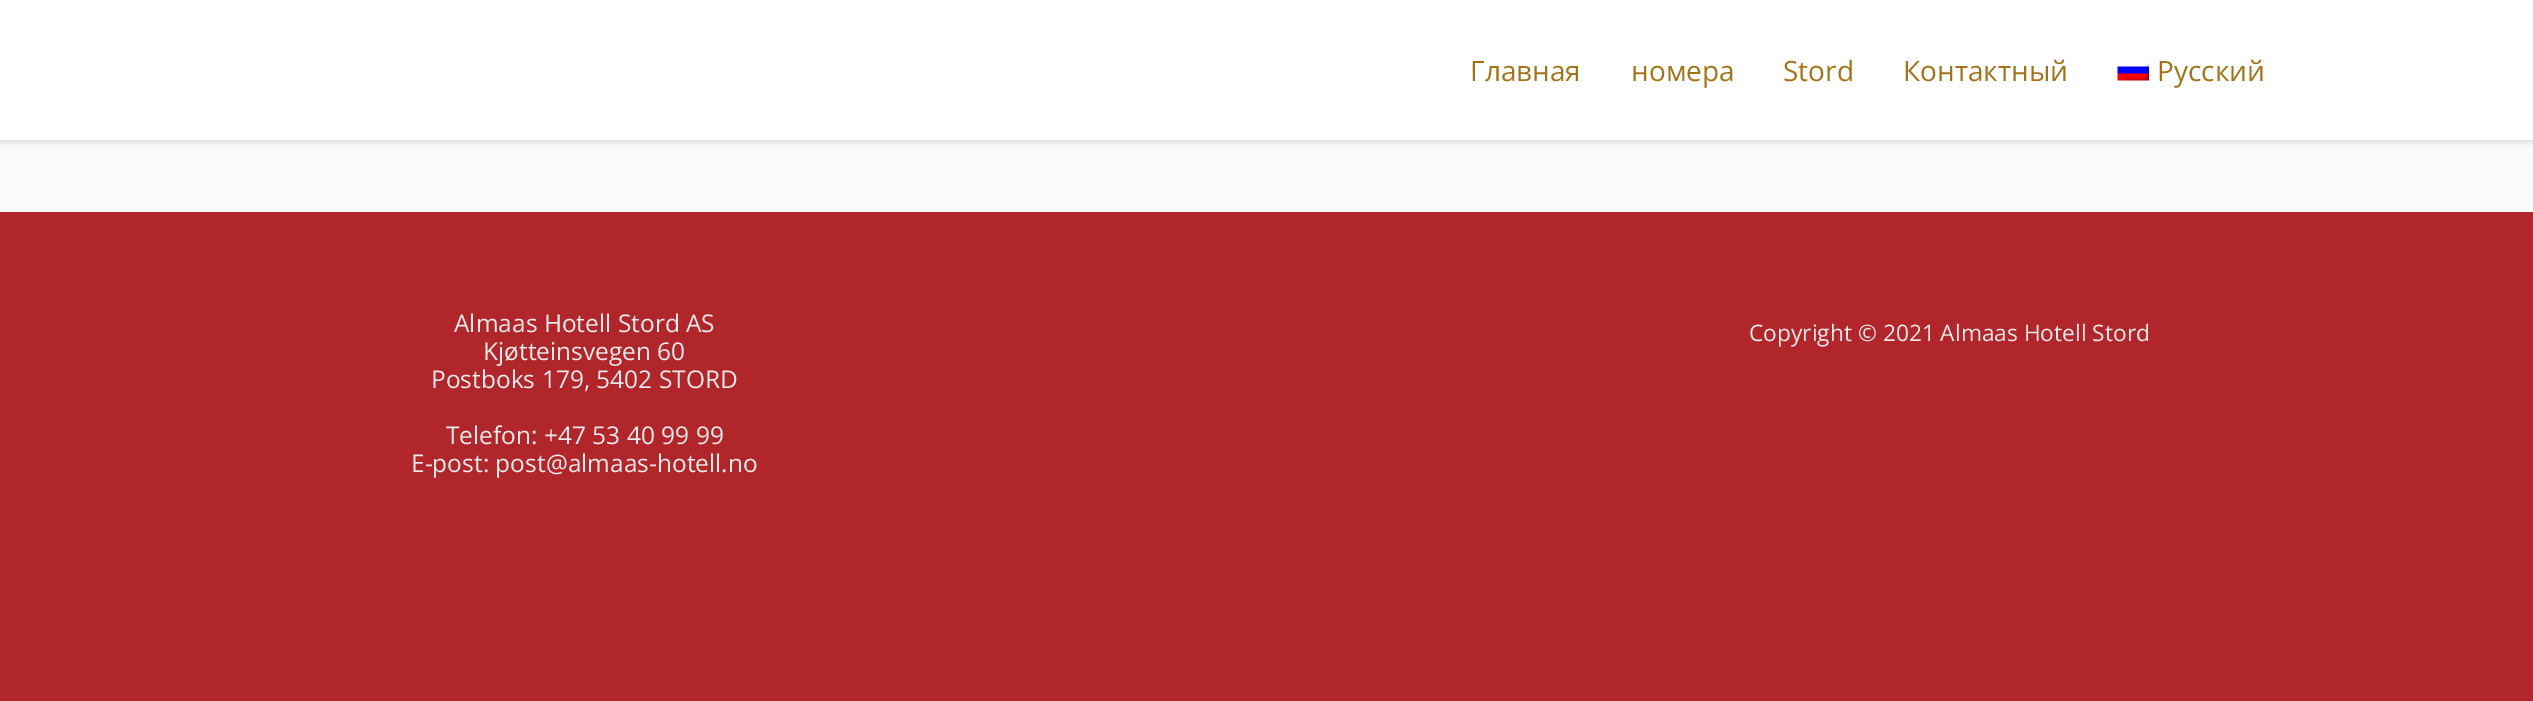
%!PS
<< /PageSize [2533 701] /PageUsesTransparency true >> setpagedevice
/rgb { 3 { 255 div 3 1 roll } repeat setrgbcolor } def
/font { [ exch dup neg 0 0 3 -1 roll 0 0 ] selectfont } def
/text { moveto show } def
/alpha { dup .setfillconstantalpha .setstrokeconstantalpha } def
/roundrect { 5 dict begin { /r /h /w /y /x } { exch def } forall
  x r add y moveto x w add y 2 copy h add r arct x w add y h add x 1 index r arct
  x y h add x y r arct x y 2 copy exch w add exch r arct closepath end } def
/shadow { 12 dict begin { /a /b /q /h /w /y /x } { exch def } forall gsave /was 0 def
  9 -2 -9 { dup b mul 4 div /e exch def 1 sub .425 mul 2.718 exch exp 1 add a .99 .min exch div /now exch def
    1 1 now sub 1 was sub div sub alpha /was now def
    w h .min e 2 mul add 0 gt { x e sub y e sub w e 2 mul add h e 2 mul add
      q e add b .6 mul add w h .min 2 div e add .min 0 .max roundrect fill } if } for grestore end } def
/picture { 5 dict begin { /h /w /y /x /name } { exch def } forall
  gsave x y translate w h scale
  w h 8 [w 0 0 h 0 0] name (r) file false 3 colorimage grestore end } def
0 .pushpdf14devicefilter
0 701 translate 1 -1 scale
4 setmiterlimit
251 251 251 rgb
0 0 2533 701 rectfill
0 0 0 rgb
0 0 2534 140 0 4.5 0.19 shadow
255 255 255 rgb
0 0 2533 140 rectfill
(img_01.rgb) 2117 62 32 19 picture
176 38 43 rgb
0 212 2533 489 rectfill
/OpenSans-Regular 28 font
161 116 27 rgb
(Главная) 1470 81 text
(номера) 1631 81 text
(Stord) 1783 81 text
(Контактный) 1903 81 text
(Русский) 2157 81 text
/OpenSans-Regular 24.5 font
233 233 233 rgb
(Almaas Hotell Stord AS) 454 332 text
(Kjøtteinsvegen 60) 483 360 text
(Postboks 179, 5402 STORD) 431 388 text
(Telefon: +47 53 40 99 99) 446 444 text
(E-post: post@almaas-hotell.no) 411 472 text
/OpenSans-Regular 22.75 font
(Copyright © 2021 Almaas Hotell Stord) 1749 341 text
.poppdf14devicefilter showpage
